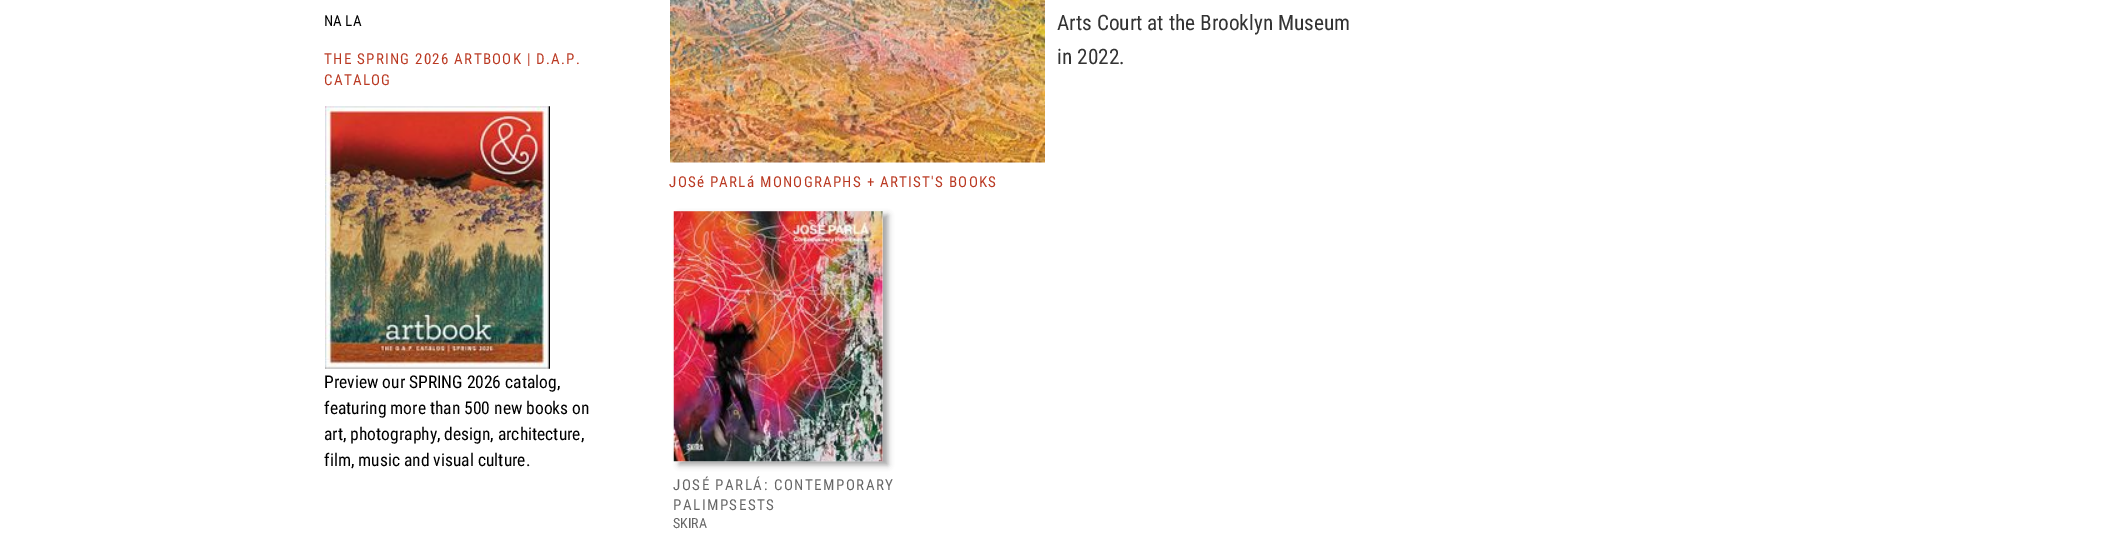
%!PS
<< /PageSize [2118 540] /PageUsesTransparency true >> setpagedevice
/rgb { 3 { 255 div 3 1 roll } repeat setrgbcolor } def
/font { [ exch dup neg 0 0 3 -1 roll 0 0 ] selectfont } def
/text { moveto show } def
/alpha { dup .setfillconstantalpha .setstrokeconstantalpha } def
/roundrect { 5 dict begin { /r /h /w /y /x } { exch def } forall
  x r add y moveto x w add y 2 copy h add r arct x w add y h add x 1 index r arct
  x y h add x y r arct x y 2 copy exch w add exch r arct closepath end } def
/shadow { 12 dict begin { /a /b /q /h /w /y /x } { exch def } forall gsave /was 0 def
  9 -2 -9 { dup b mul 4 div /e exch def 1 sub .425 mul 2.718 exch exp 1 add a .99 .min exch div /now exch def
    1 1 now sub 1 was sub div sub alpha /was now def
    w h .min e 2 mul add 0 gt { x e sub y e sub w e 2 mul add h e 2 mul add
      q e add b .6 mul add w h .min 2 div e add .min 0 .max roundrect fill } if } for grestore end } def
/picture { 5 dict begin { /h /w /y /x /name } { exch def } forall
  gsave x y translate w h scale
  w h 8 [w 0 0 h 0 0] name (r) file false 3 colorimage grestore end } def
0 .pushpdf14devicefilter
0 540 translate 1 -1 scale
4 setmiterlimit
255 255 255 rgb
0 0 2118 540 rectfill
(img_01.rgb) 325 106 225 263 picture
(img_02.rgb) 670 0 375 163 picture
163 163 163 rgb
679 215 209 250 0 3 1 shadow
235 235 235 rgb
674 211 209 250 rectfill
(img_03.rgb) 673 211 210 251 picture
/RobotoCondensed-Regular 15 font
0 0 0 rgb
(NA LA) 324 26 text
186 57 34 rgb
324 64 moveto 1.25 0 (THE SPRING 2026 ARTBOOK | D.A.P.) ashow
324 85 moveto 1.25 0 (CATALOG) ashow
/RobotoCondensed-Regular 17.5 font
0 0 0 rgb
(Preview our SPRING 2026 catalog,) 324 388 text
(featuring more than 500 new books on) 324 414 text
(art, photography, design, architecture,) 324 440 text
(film, music and visual culture.) 324 466 text
/RobotoCondensed-Regular 21.25 font
51 51 51 rgb
(Arts Court at the Brooklyn Museum) 1057 30 text
(in 2022.) 1057 64 text
/RobotoCondensed-Regular 15 font
186 57 34 rgb
669 187 moveto 1.25 0 (JOSé PARLá MONOGRAPHS + ARTIST'S BOOKS) ashow
102 102 102 rgb
673 490 moveto 1.5 0 (JOSÉ PARLÁ: CONTEMPORARY) ashow
673 510 moveto 1.5 0 (PALIMPSESTS) ashow
/RobotoCondensed-Regular 14 font
(SKIRA) 673 528 text
.poppdf14devicefilter showpage
